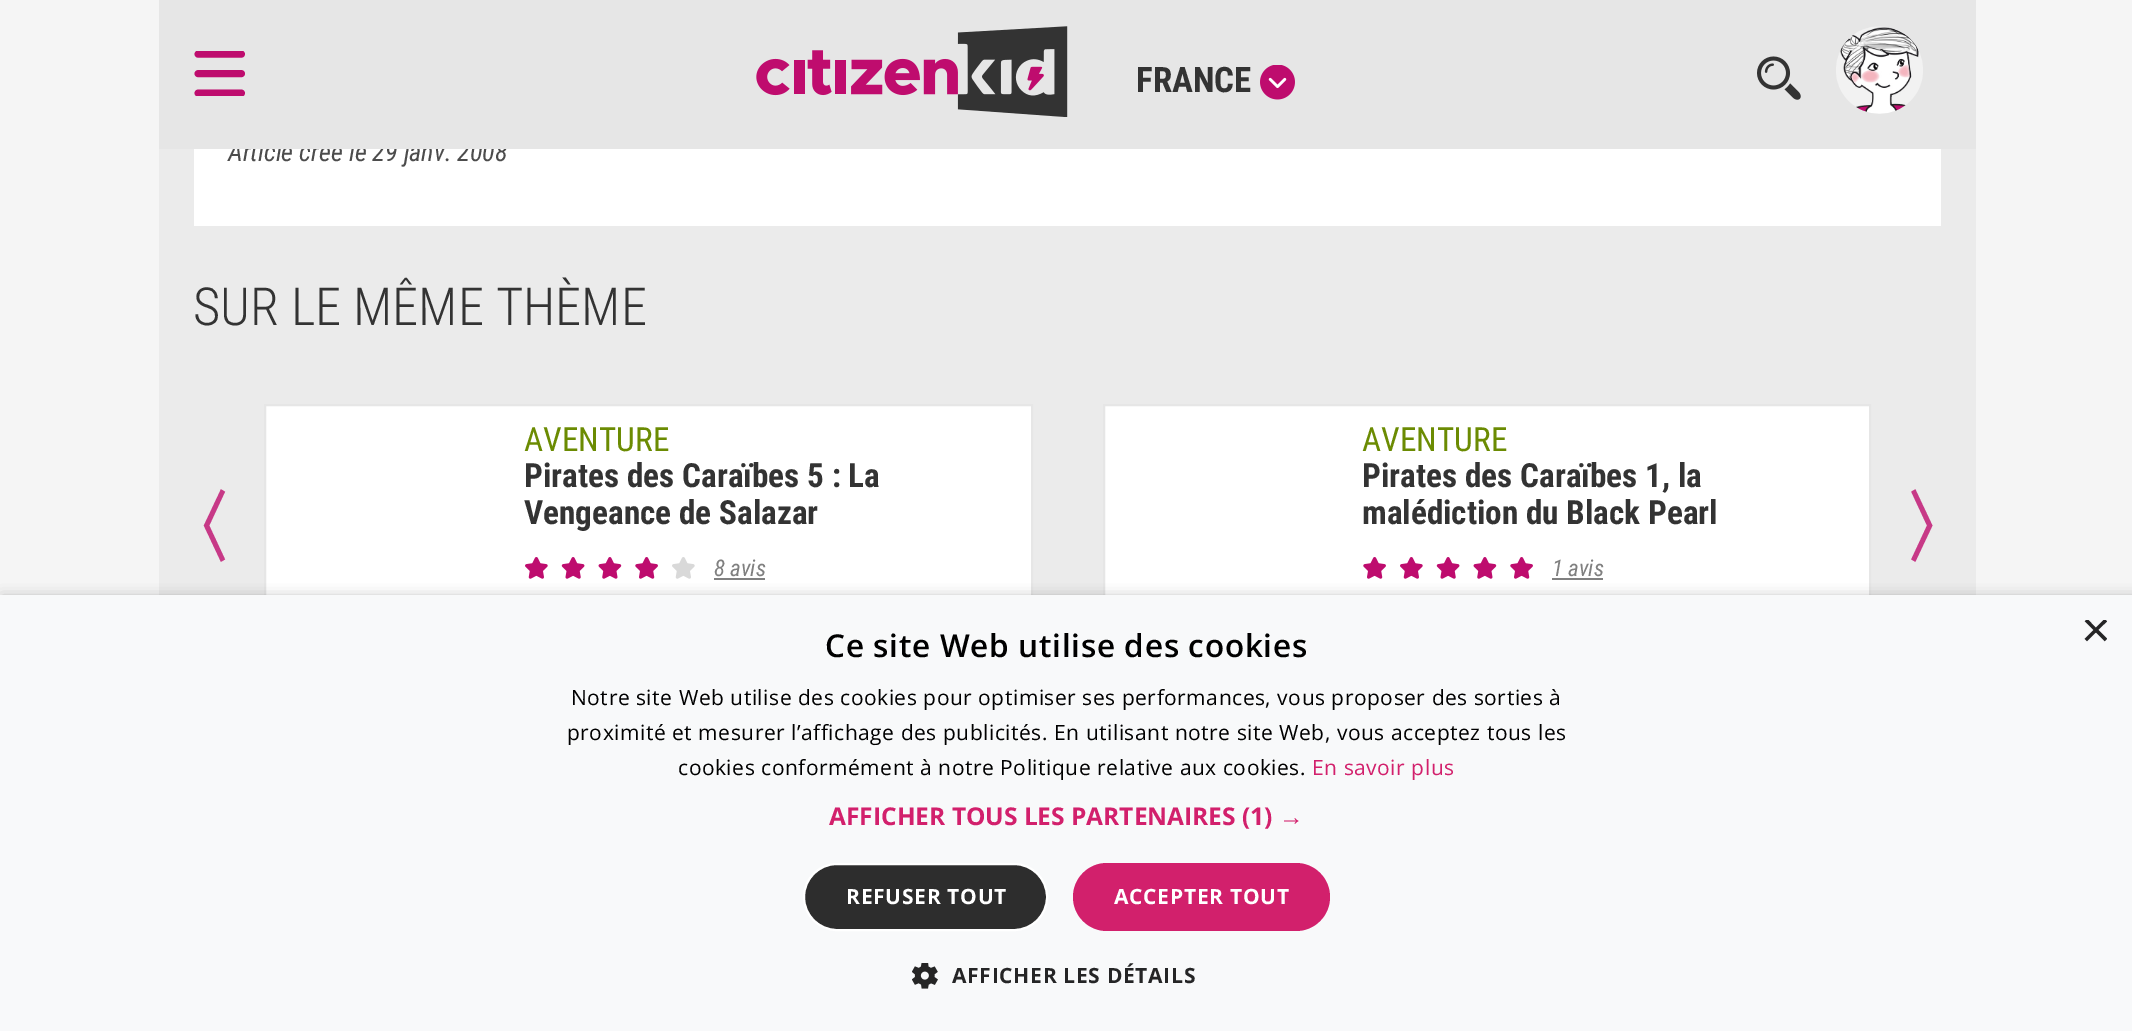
%!PS
<< /PageSize [2132 1031] /PageUsesTransparency true >> setpagedevice
/rgb { 3 { 255 div 3 1 roll } repeat setrgbcolor } def
/font { [ exch dup neg 0 0 3 -1 roll 0 0 ] selectfont } def
/text { moveto show } def
/alpha { dup .setfillconstantalpha .setstrokeconstantalpha } def
/roundrect { 5 dict begin { /r /h /w /y /x } { exch def } forall
  x r add y moveto x w add y 2 copy h add r arct x w add y h add x 1 index r arct
  x y h add x y r arct x y 2 copy exch w add exch r arct closepath end } def
/shadow { 12 dict begin { /a /b /q /h /w /y /x } { exch def } forall gsave /was 0 def
  9 -2 -9 { dup b mul 4 div /e exch def 1 sub .425 mul 2.718 exch exp 1 add a .99 .min exch div /now exch def
    1 1 now sub 1 was sub div sub alpha /was now def
    w h .min e 2 mul add 0 gt { x e sub y e sub w e 2 mul add h e 2 mul add
      q e add b .6 mul add w h .min 2 div e add .min 0 .max roundrect fill } if } for grestore end } def
/picture { 5 dict begin { /h /w /y /x /name } { exch def } forall
  gsave x y translate w h scale
  w h 8 [w 0 0 h 0 0] name (r) file false 3 colorimage grestore end } def
0 .pushpdf14devicefilter
0 1031 translate 1 -1 scale
4 setmiterlimit
245 245 245 rgb
0 0 2132 1031 rectfill
235 235 235 rgb
159 149 1817 446 rectfill
255 255 255 rgb
194 149 1747 77 rectfill
266 406 765 189 rectfill
230 230 230 rgb
2 setlinewidth
265 405 767 249 rectstroke
(img_05.rgb) 525 557 23 22 picture
(img_06.rgb) 561 557 24 22 picture
(img_07.rgb) 598 557 24 22 picture
(img_08.rgb) 635 557 23 22 picture
(img_09.rgb) 672 557 23 22 picture
128 128 128 rgb
714 578 51 2 rectfill
255 255 255 rgb
1105 406 764 189 rectfill
230 230 230 rgb
1104 405 766 249 rectstroke
(img_08.rgb) 1363 557 23 22 picture
(img_05.rgb) 1400 557 23 22 picture
(img_06.rgb) 1436 557 24 22 picture
(img_07.rgb) 1473 557 24 22 picture
(img_08.rgb) 1510 557 23 22 picture
128 128 128 rgb
1552 578 51 2 rectfill
0 0 0 rgb
2 599 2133 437 0 7 0.35 shadow
248 249 250 rgb
0 595 2132 436 rectfill
45 45 45 rgb
804 864 243 66 33 roundrect gsave fill grestore
255 255 255 rgb
stroke
210 32 108 rgb
1073 863 257 68 34 roundrect fill
(img_10.rgb) 912 963 26 26 picture
/RobotoCondensed-Italic 26.25 font
76 76 76 rgb
(Article créé le 29 janv. 2008) 228 161 text
230 230 230 rgb
159 0 1817 149 rectfill
(img_04.rgb) 1836 26 87 88 picture
(img_01.rgb) 756 26 312 91 picture
(img_03.rgb) 1757 56 44 44 picture
(img_02.rgb) 1260 65 35 35 picture
/RobotoCondensed-Bold 35 font
51 51 51 rgb
(FRANCE) 1136 92 text
gsave
194 51 51 45 rectclip
190 12 110 rgb
6.9 setlinewidth
1 setlinecap
198 93 moveto 43.5 0 rlineto stroke
grestore
190 12 110 rgb
6.9 setlinewidth
1 setlinecap
198 73.5 moveto 43.5 0 rlineto stroke
gsave
194 51 51 45 rectclip
198 54 moveto 43.5 0 rlineto stroke
grestore
/RobotoCondensed-Light 52.5 font
51 51 51 rgb
(SUR LE MÊME THÈME) 193 325 text
/RobotoCondensed-Regular 33.25 font
107 139 2 rgb
(AVENTURE) 524 451 text
/RobotoCondensed-Bold 33.25 font
51 51 51 rgb
(Pirates des Caraïbes 5 : La) 524 487 text
(Vengeance de Salazar) 524 524 text
/RobotoCondensed-Italic 23 font
128 128 128 rgb
(8 avis) 714 576 text
/RobotoCondensed-Regular 33.25 font
107 139 2 rgb
(AVENTURE) 1362 451 text
/RobotoCondensed-Bold 33.25 font
51 51 51 rgb
(Pirates des Caraïbes 1, la) 1362 487 text
(malédiction du Black Pearl) 1362 524 text
/RobotoCondensed-Italic 23 font
128 128 128 rgb
(1 avis) 1552 576 text
/WenQuanYiZenHei-Bold 79 font
199 57 135 rgb
(〈) 154 555 text
(〉) 1901 555 text
/OpenSans-SemiBold 31.5 font
0 0 0 rgb
825 657 moveto 0.7 0 (Ce site Web utilise des cookies) ashow
gsave
2081 620 26 26 rectclip
/LiberationSans-Regular 51 font
37 37 38 rgb
(×) 2081 647 text
grestore
/OpenSans-Regular 21 font
571 705 moveto 0.53 0 (Notre site Web utilise des cookies pour optimiser ses performances, vous proposer des sorties à) ashow
567 740 moveto 0.53 0 (proximité et mesurer l’affichage des publicités. En utilisant notre site Web, vous acceptez tous les) ashow
678 775 moveto 0.53 0 (cookies conformément à notre Politique relative aux cookies.) ashow
210 32 108 rgb
1312 775 moveto 0.53 0 (En savoir plus) ashow
/OpenSans-Bold 24.5 font
(AFFICHER TOUS LES PARTENAIRES \(1\)) 829 825 text
/LiberationSans-Bold 24.5 font
(→) 1279 825 text
/OpenSans-Bold 21 font
255 255 255 rgb
846 904 moveto 0.7 0 (REFUSER TOUT) ashow
1114 904 moveto 0.7 0 (ACCEPTER TOUT) ashow
37 37 38 rgb
952 983 moveto 0.7 0 (AFFICHER LES DÉTAILS) ashow
.poppdf14devicefilter showpage
